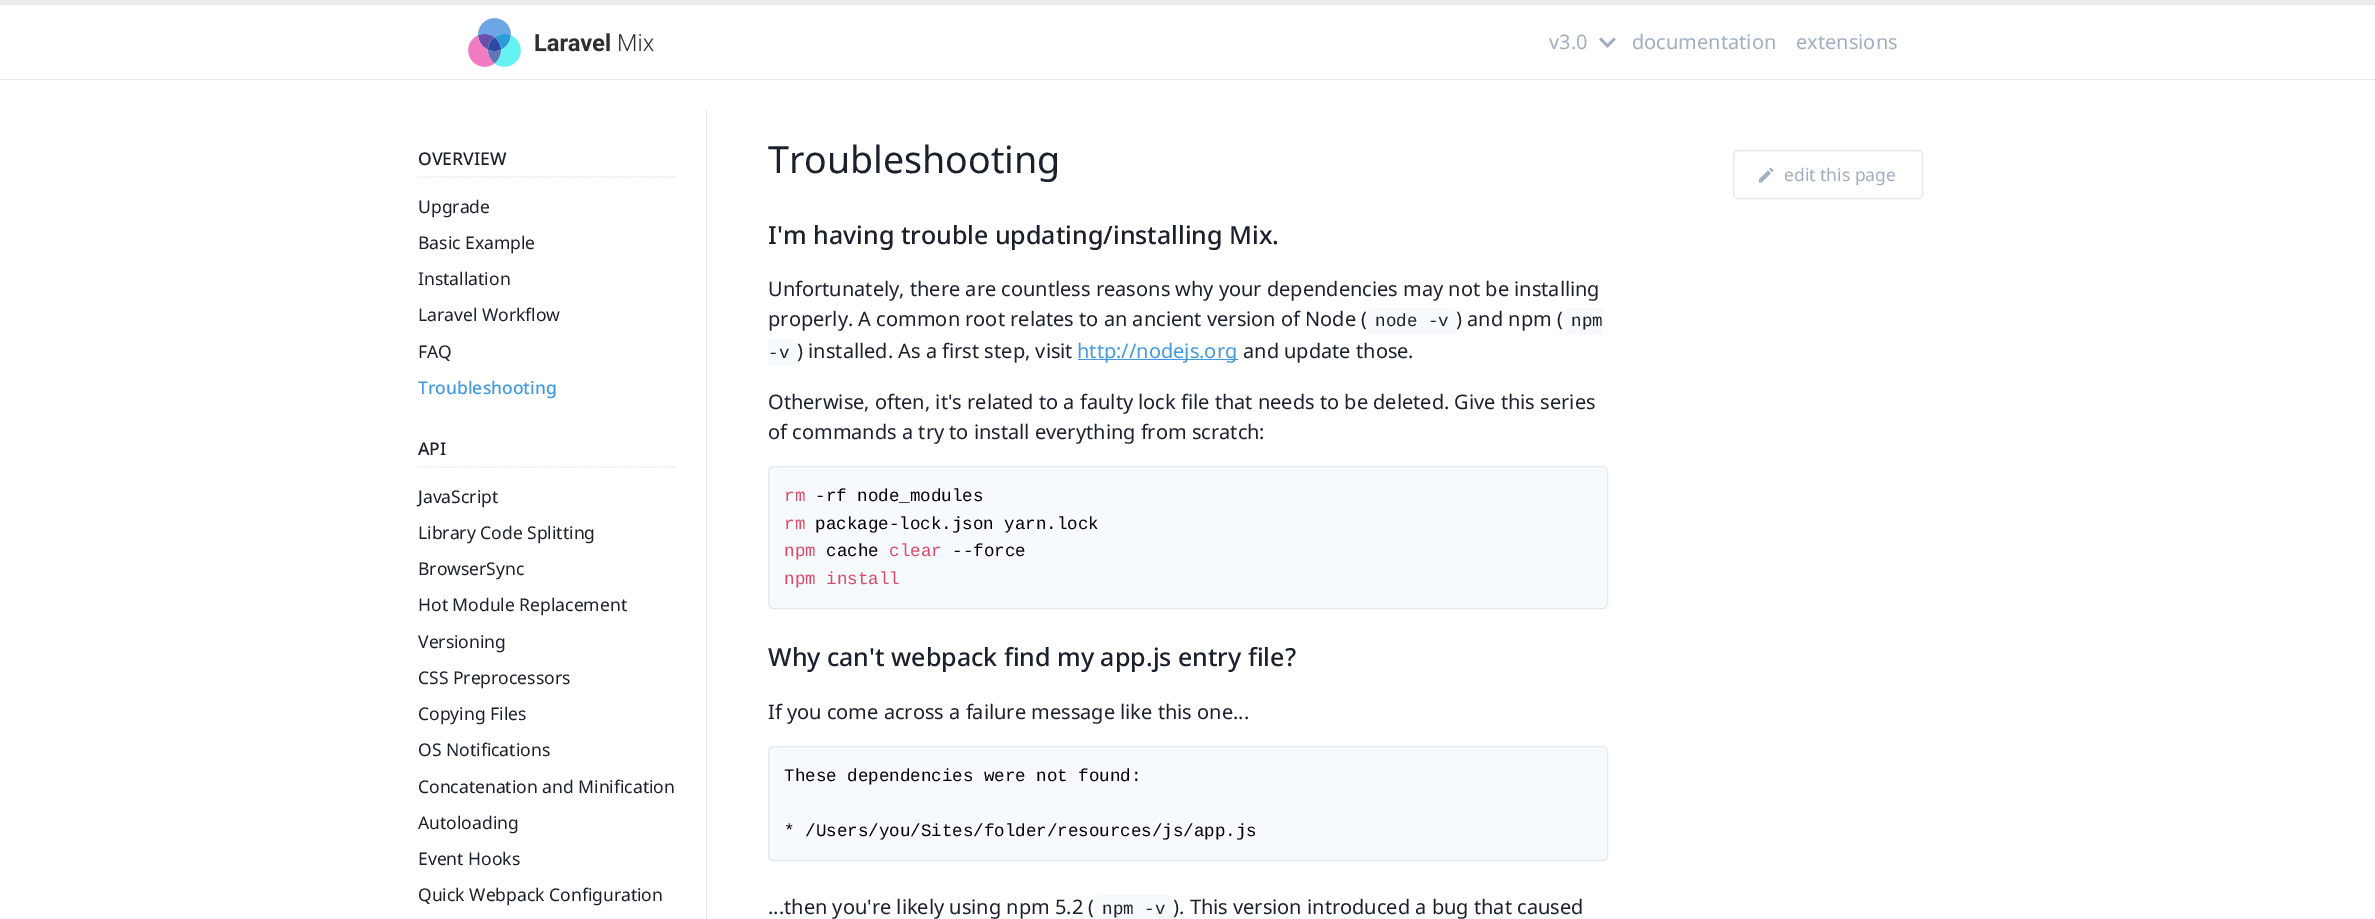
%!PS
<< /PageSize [2375 919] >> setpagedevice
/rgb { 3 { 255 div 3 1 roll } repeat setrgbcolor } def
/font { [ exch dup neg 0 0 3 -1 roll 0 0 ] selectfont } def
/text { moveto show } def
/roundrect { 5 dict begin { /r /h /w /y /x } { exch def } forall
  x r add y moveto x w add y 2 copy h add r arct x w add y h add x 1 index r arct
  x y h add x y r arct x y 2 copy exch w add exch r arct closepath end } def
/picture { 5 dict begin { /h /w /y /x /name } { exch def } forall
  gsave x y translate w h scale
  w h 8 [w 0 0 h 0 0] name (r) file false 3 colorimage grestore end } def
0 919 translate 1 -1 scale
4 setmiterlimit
255 255 255 rgb
0 0 2375 919 rectfill
234 234 234 rgb
0 0 2375 5 rectfill
226 232 240 rgb
0 79 2375 1 rectfill
(img_01.rgb) 468 18 186 49 picture
(img_02.rgb) 1599 37 17 11 picture
706 110 1 809 rectfill
1.2 setlinewidth
[1.25 1.25] 0 setdash
417.5 177 moveto 258.5 0 rlineto stroke
417.5 467 moveto 258.5 0 rlineto stroke
247 250 252 rgb
1569 308 moveto 34 0 rlineto 0 27 rlineto -34 0 rlineto -3 0 -5 -2 -5 -5 rcurveto 0 -17 rlineto 0 -3 2 -5 5 -5 rcurveto closepath fill
768 339 moveto 23 0 rlineto 3 0 5 2 5 5 rcurveto 0 17 rlineto 0 3 -2 5 -5 5 rcurveto -23 0 rlineto closepath fill
66 153 225 rgb
1078 359 160 1 rectfill
247 250 252 rgb
768.5 466.5 839 142 4.5 roundrect gsave fill grestore
226 232 240 rgb
1 setlinewidth
[] 0 setdash
stroke
247 250 252 rgb
768.5 746.5 839 114 4.5 roundrect gsave fill grestore
226 232 240 rgb
stroke
247 250 252 rgb
1094 895 79 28 5 roundrect fill
226 232 240 rgb
1733.5 150.5 189 48 4.5 roundrect stroke
(img_03.rgb) 1759 168 15 15 picture
/NotoSans-Regular 20 font
160 174 192 rgb
(v3.0) 1549 49 text
(documentation) 1632 49 text
(extensions) 1796 49 text
/NotoSans-Medium 17.5 font
26 32 44 rgb
(OVERVIEW) 418 165 text
/NotoSans-Regular 17.5 font
(Upgrade) 418 213 text
(Basic Example) 418 249 text
(Installation) 418 285 text
(Laravel Workflow) 418 321 text
(FAQ) 418 358 text
/NotoSans-Medium 17.5 font
66 153 225 rgb
(Troubleshooting) 418 394 text
26 32 44 rgb
(API) 418 455 text
/NotoSans-Regular 17.5 font
(JavaScript) 418 503 text
(Library Code Splitting) 418 539 text
(BrowserSync) 418 575 text
(Hot Module Replacement) 418 611 text
(Versioning) 418 648 text
(CSS Preprocessors) 418 684 text
(Copying Files) 418 720 text
(OS Notifications) 418 756 text
(Concatenation and Minification) 418 793 text
(Autoloading) 418 829 text
(Event Hooks) 418 865 text
(Quick Webpack Configuration) 418 901 text
/NotoSans-Regular 37.5 font
(Troubleshooting) 768 173 text
/NotoSans-Medium 25 font
(I'm having trouble updating/installing Mix.) 768 244 text
/NotoSans-Regular 20 font
(Unfortunately, there are countless reasons why your dependencies may not be installing) 768 296 text
(properly. A common root relates to an ancient version of Node \() 768 326 text
247 250 252 rgb
1366 308 90 27 5 roundrect fill
/LiberationMono-Regular 17.5 font
26 32 44 rgb
(node -v) 1375 326 text
/NotoSans-Regular 20 font
(\) and npm \() 1456 326 text
/LiberationMono-Regular 17.5 font
(npm) 1571 326 text
(-v) 768 358 text
/NotoSans-Regular 20 font
(\) installed. As a first step, visit) 797 358 text
66 153 225 rgb
(http://nodejs.org) 1077 358 text
26 32 44 rgb
(and update those.) 1243 358 text
(Otherwise, often, it's related to a faulty lock file that needs to be deleted. Give this series) 768 409 text
(of commands a try to install everything from scratch:) 768 439 text
/LiberationMono-Regular 17.5 font
221 74 104 rgb
(rm) 784 501 text
0 0 0 rgb
(-rf node_modules) 815 501 text
221 74 104 rgb
(rm) 784 529 text
0 0 0 rgb
(package-lock.json yarn.lock) 815 529 text
221 74 104 rgb
(npm) 784 556 text
0 0 0 rgb
(cache) 826 556 text
221 74 104 rgb
(clear) 889 556 text
0 0 0 rgb
(--force) 952 556 text
221 74 104 rgb
(npm install) 784 584 text
/NotoSans-Medium 25 font
26 32 44 rgb
(Why can't webpack find my app.js entry file?) 768 666 text
/NotoSans-Regular 20 font
(If you come across a failure message like this one...) 768 719 text
/LiberationMono-Regular 17.5 font
0 0 0 rgb
(These dependencies were not found:) 784 781 text
(* /Users/you/Sites/folder/resources/js/app.js) 784 836 text
/NotoSans-Regular 20 font
26 32 44 rgb
(...then you're likely using npm 5.2 \() 768 914 text
/LiberationMono-Regular 17.5 font
(npm -v) 1102 914 text
/NotoSans-Regular 20 font
(\). This version introduced a bug that caused) 1173 914 text
/NotoSans-Regular 17.5 font
160 174 192 rgb
(edit this page) 1784 181 text
showpage
